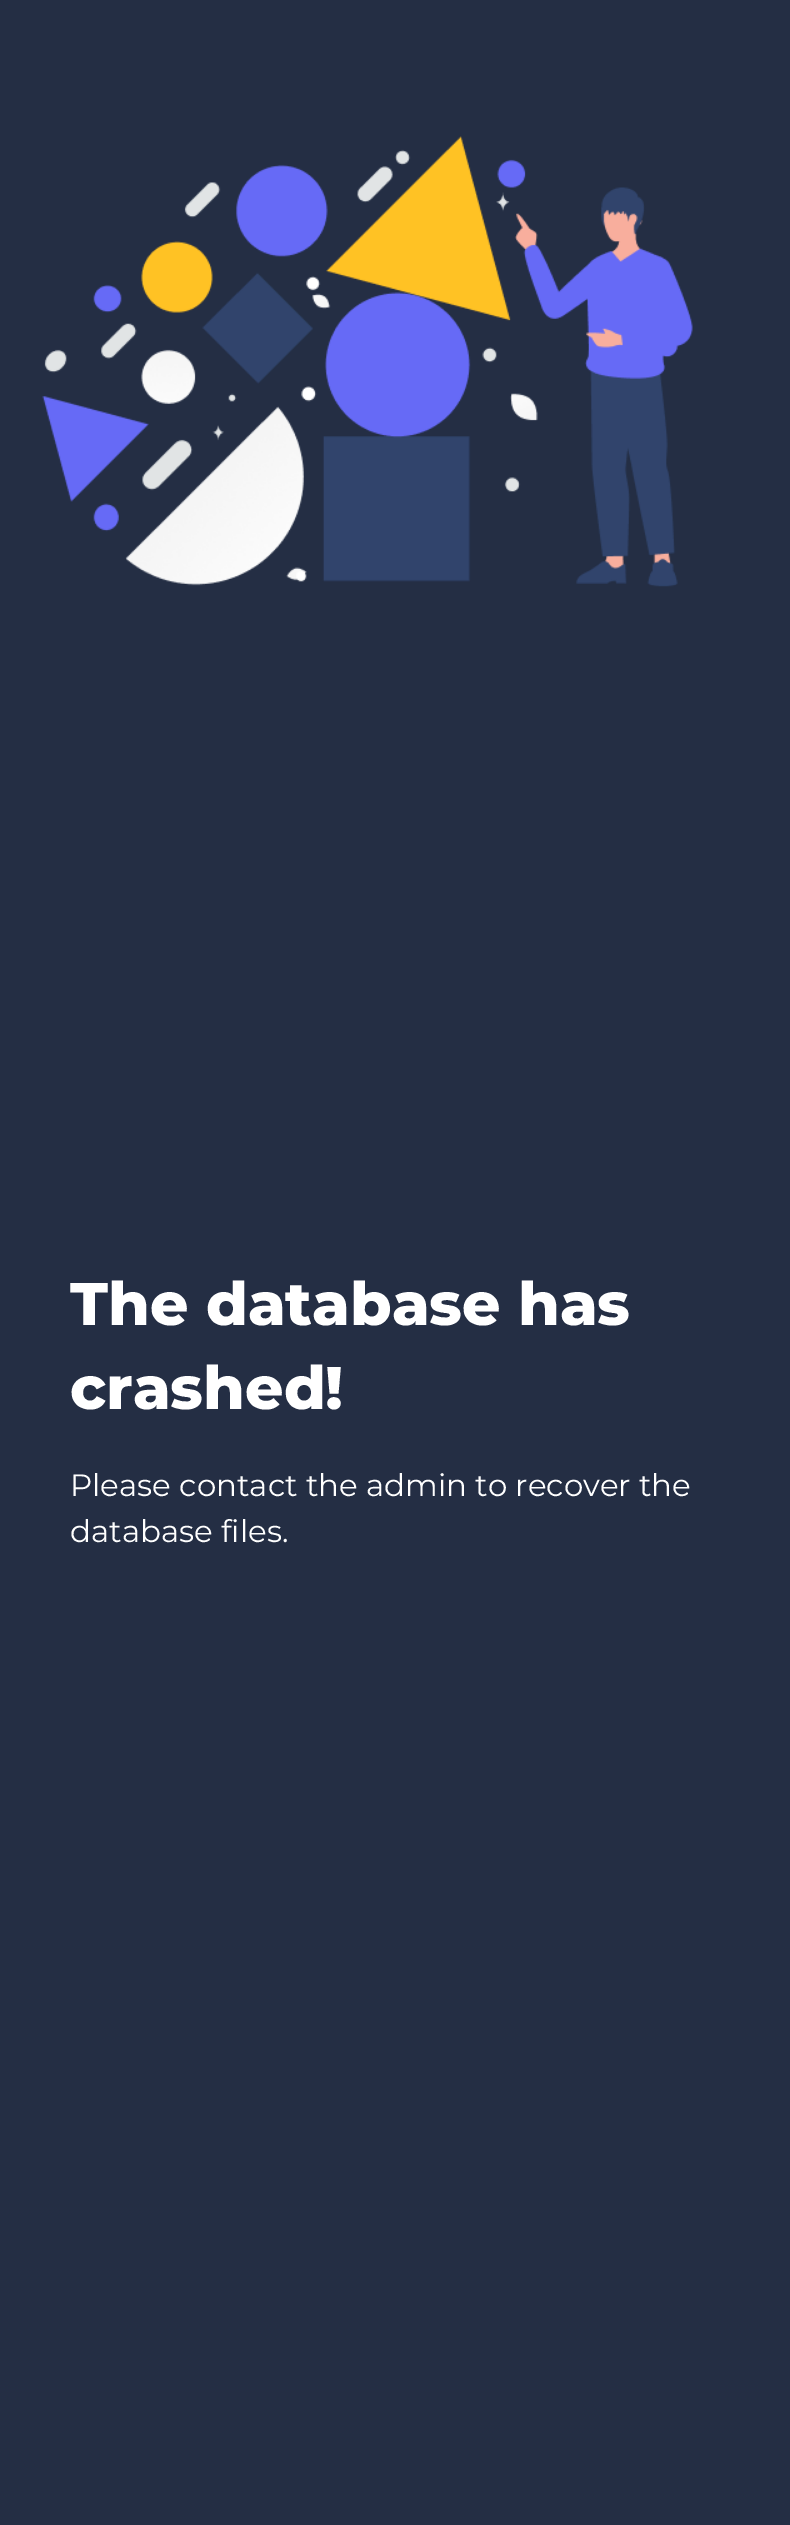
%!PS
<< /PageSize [790 2525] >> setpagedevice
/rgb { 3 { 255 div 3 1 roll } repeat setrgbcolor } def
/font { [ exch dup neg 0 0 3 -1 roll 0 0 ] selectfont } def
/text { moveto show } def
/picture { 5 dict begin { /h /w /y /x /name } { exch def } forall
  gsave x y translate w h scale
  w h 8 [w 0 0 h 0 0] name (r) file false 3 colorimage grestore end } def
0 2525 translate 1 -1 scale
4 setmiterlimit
36 46 68 rgb
0 0 790 2525 rectfill
(img_01.rgb) 42 136 651 451 picture
/Montserrat-ExtraBold 60 font
255 255 255 rgb
(The database has) 70 1325 text
(crashed!) 70 1409 text
/Montserrat-Regular 30.9 font
(Please contact the admin to recover the) 70 1496 text
(database files.) 70 1542 text
showpage
